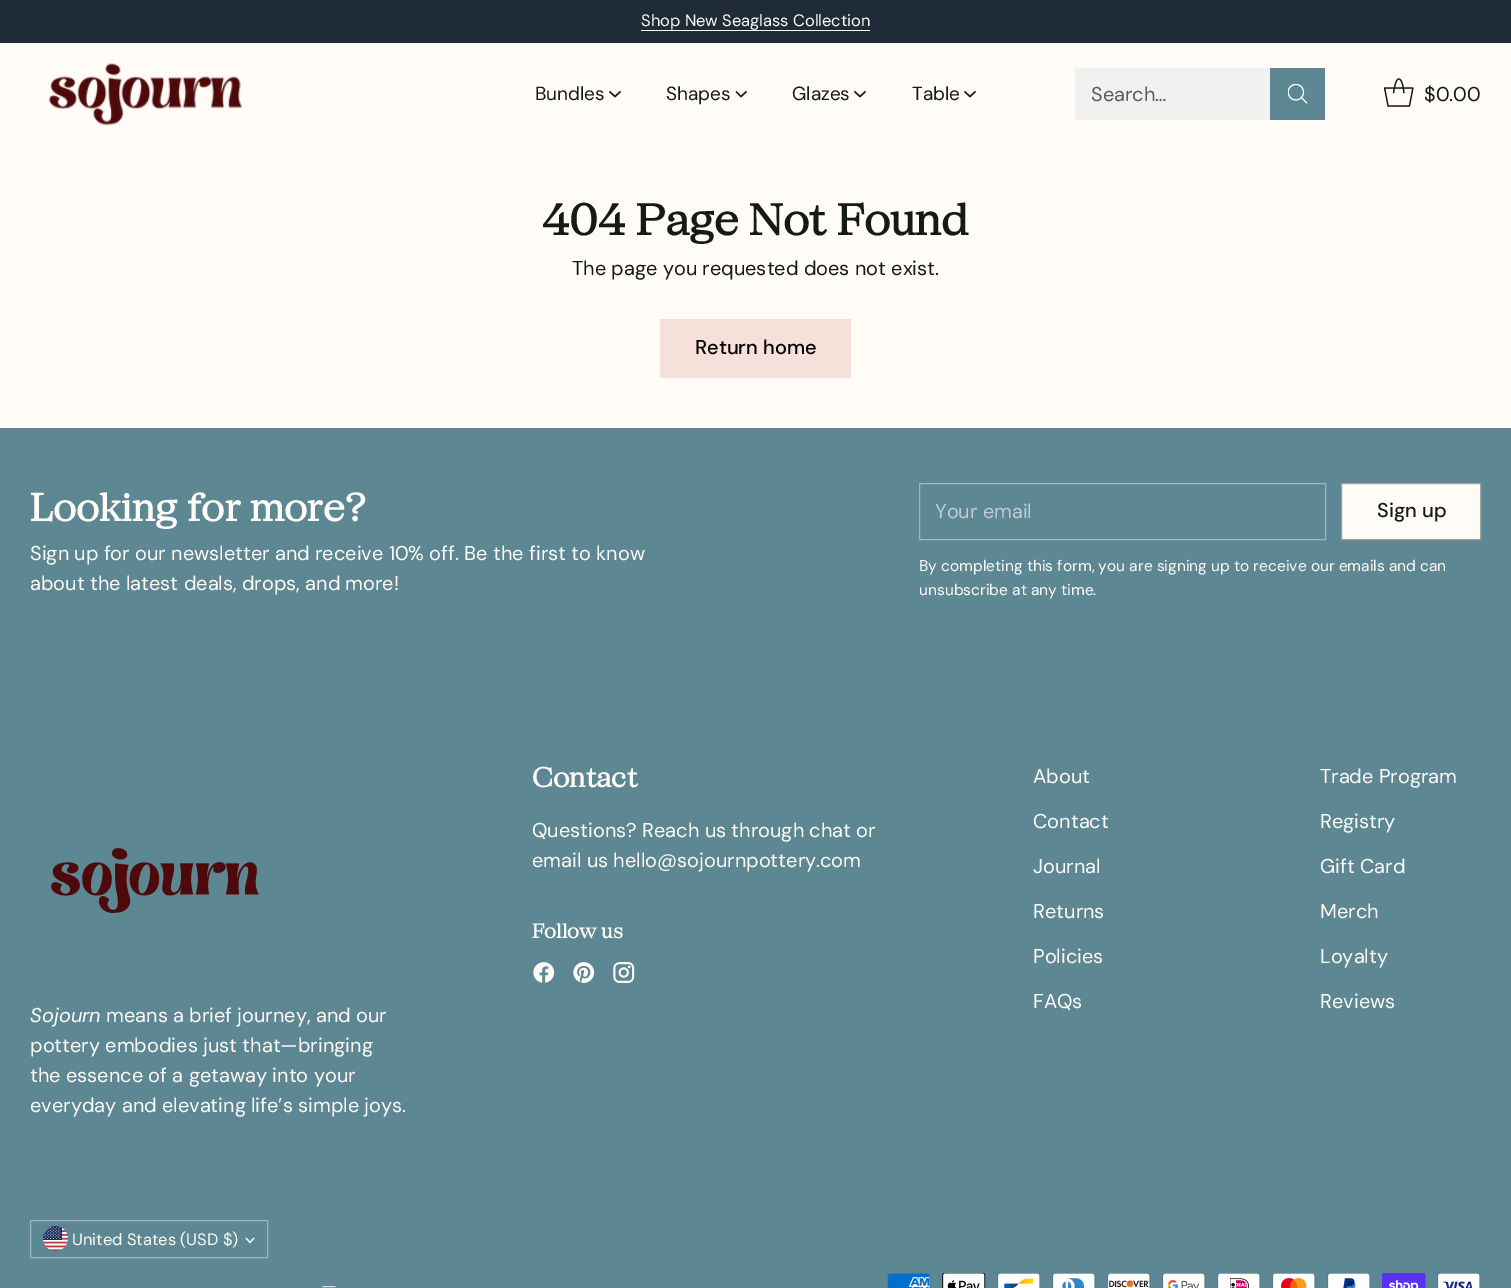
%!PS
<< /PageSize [1511 1288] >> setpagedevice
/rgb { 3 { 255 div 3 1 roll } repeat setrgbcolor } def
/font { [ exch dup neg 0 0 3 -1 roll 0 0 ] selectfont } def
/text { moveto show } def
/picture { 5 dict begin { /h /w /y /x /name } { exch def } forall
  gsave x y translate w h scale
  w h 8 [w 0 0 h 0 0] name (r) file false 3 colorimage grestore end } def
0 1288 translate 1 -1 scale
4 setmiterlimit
255 252 248 rgb
0 0 1511 1288 rectfill
31 43 56 rgb
0 0 1511 43 rectfill
255 252 248 rgb
641 30 229 1 rectfill
(img_01.rgb) 48 63 194 63 picture
22 26 21 rgb
1.4 setlinewidth
609.5 91.5 moveto 5.5 5 rlineto 5.5 -5 rlineto stroke
736 91.5 moveto 5 5 rlineto 5.5 -5 rlineto stroke
854.5 91.5 moveto 5.5 5 rlineto 5.5 -5 rlineto stroke
964.5 91.5 moveto 5.5 5 rlineto 5.5 -5 rlineto stroke
241 241 241 rgb
1 setlinewidth
1075.5 68.5 249 51 rectstroke
1076 69 194 50 rectfill
94 135 148 rgb
1270 68 55 52 rectfill
(img_02.rgb) 1288 84 20 20 picture
(img_03.rgb) 1383 78 31 29 picture
246 224 218 rgb
660 319 191 59 rectfill
94 135 148 rgb
0 428 1511 860 rectfill
158 182 188 rgb
919.5 483.5 406 56 rectstroke
255 252 248 rgb
1341.5 483.5 moveto 139 0 rlineto 0 56 rlineto -139 0 rlineto closepath gsave fill grestore
162 162 157 rgb
stroke
(img_04.rgb) 533 962 22 21 picture
(img_05.rgb) 573 962 22 21 picture
(img_06.rgb) 613 962 22 21 picture
(img_07.rgb) 51 848 208 65 picture
158 182 188 rgb
30.5 1220.5 237 37 rectstroke
(img_08.rgb) 43 1226 25 25 picture
255 252 248 rgb
1.1 setlinewidth
246 1238 moveto 4 4.5 rlineto 4 -4.5 rlineto stroke
(img_09.rgb) 887 1273 44 15 picture
(img_10.rgb) 942 1273 44 15 picture
(img_11.rgb) 997 1273 44 15 picture
(img_12.rgb) 1052 1273 44 15 picture
(img_13.rgb) 1107 1273 44 15 picture
(img_14.rgb) 1162 1273 44 15 picture
(img_15.rgb) 1217 1273 44 15 picture
(img_16.rgb) 1272 1273 44 15 picture
(img_17.rgb) 1327 1273 44 15 picture
(img_18.rgb) 1382 1273 44 15 picture
(img_19.rgb) 1437 1273 44 15 picture
/DMSans-Regular 16.5 font
(Shop New Seaglass Collection) 641 26 text
/DMSans-Regular 19 font
22 26 21 rgb
(Bundles) 535 100 text
(Shapes) 666 100 text
(Glazes) 792 100 text
(Table) 912 100 text
/DMSans-Regular 20 font
88 91 87 rgb
(Search…) 1091 101 text
22 26 21 rgb
($0.00) 1424 101 text
/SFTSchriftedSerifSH-Bold 43.75 font
(404 Page Not Found) 542 235 text
/DMSans-Regular 20 font
(The page you requested does not exist.) 572 275 text
/DMSans-Medium 20 font
0 0 0 rgb
(Return home) 695 354 text
/SFTSchriftedSerifSH-Bold 38.75 font
255 252 248 rgb
(Looking for more?) 30 521 text
/DMSans-Regular 20 font
(Sign up for our newsletter and receive 10% off. Be the first to know) 30 560 text
(about the latest deals, drops, and more!) 30 590 text
191 205 208 rgb
(Your email) 935 518 text
/DMSans-Medium 20 font
22 26 21 rgb
(Sign up) 1377 517 text
/DMSans-Regular 15.55 font
255 252 248 rgb
(By completing this form, you are signing up to receive our emails and can) 919 571 text
(unsubscribe at any time.) 919 595 text
/SFTSchriftedSerifSH-Bold 27.5 font
(Contact) 532 787 text
/DMSans-Regular 20 font
(Questions? Reach us through chat or) 532 837 text
(email us hello@sojournpottery.com) 532 867 text
/SFTSchriftedSerifSH-Bold 20 font
(Follow us) 532 938 text
/DMSans-Regular 20 font
(About) 1033 783 text
(Contact) 1033 828 text
(Journal) 1033 873 text
(Returns) 1033 918 text
(Policies) 1033 963 text
(FAQs) 1033 1008 text
(Trade Program) 1320 783 text
(Registry) 1320 828 text
(Gift Card) 1320 873 text
(Merch) 1320 918 text
(Loyalty) 1320 963 text
(Reviews) 1320 1008 text
/DMSans-Italic 20 font
(Sojourn) 30 1022 text
/DMSans-Regular 20 font
(means a brief journey, and our) 106 1022 text
(pottery embodies just that—bringing) 30 1052 text
(the essence of a getaway into your) 30 1082 text
(everyday and elevating life’s simple joys.) 30 1112 text
/DMSans-Regular 16.5 font
(United States \(USD $\)) 72 1245 text
/DMSans-Regular 18 font
215 223 223 rgb
(—) 321 1292 text
showpage
